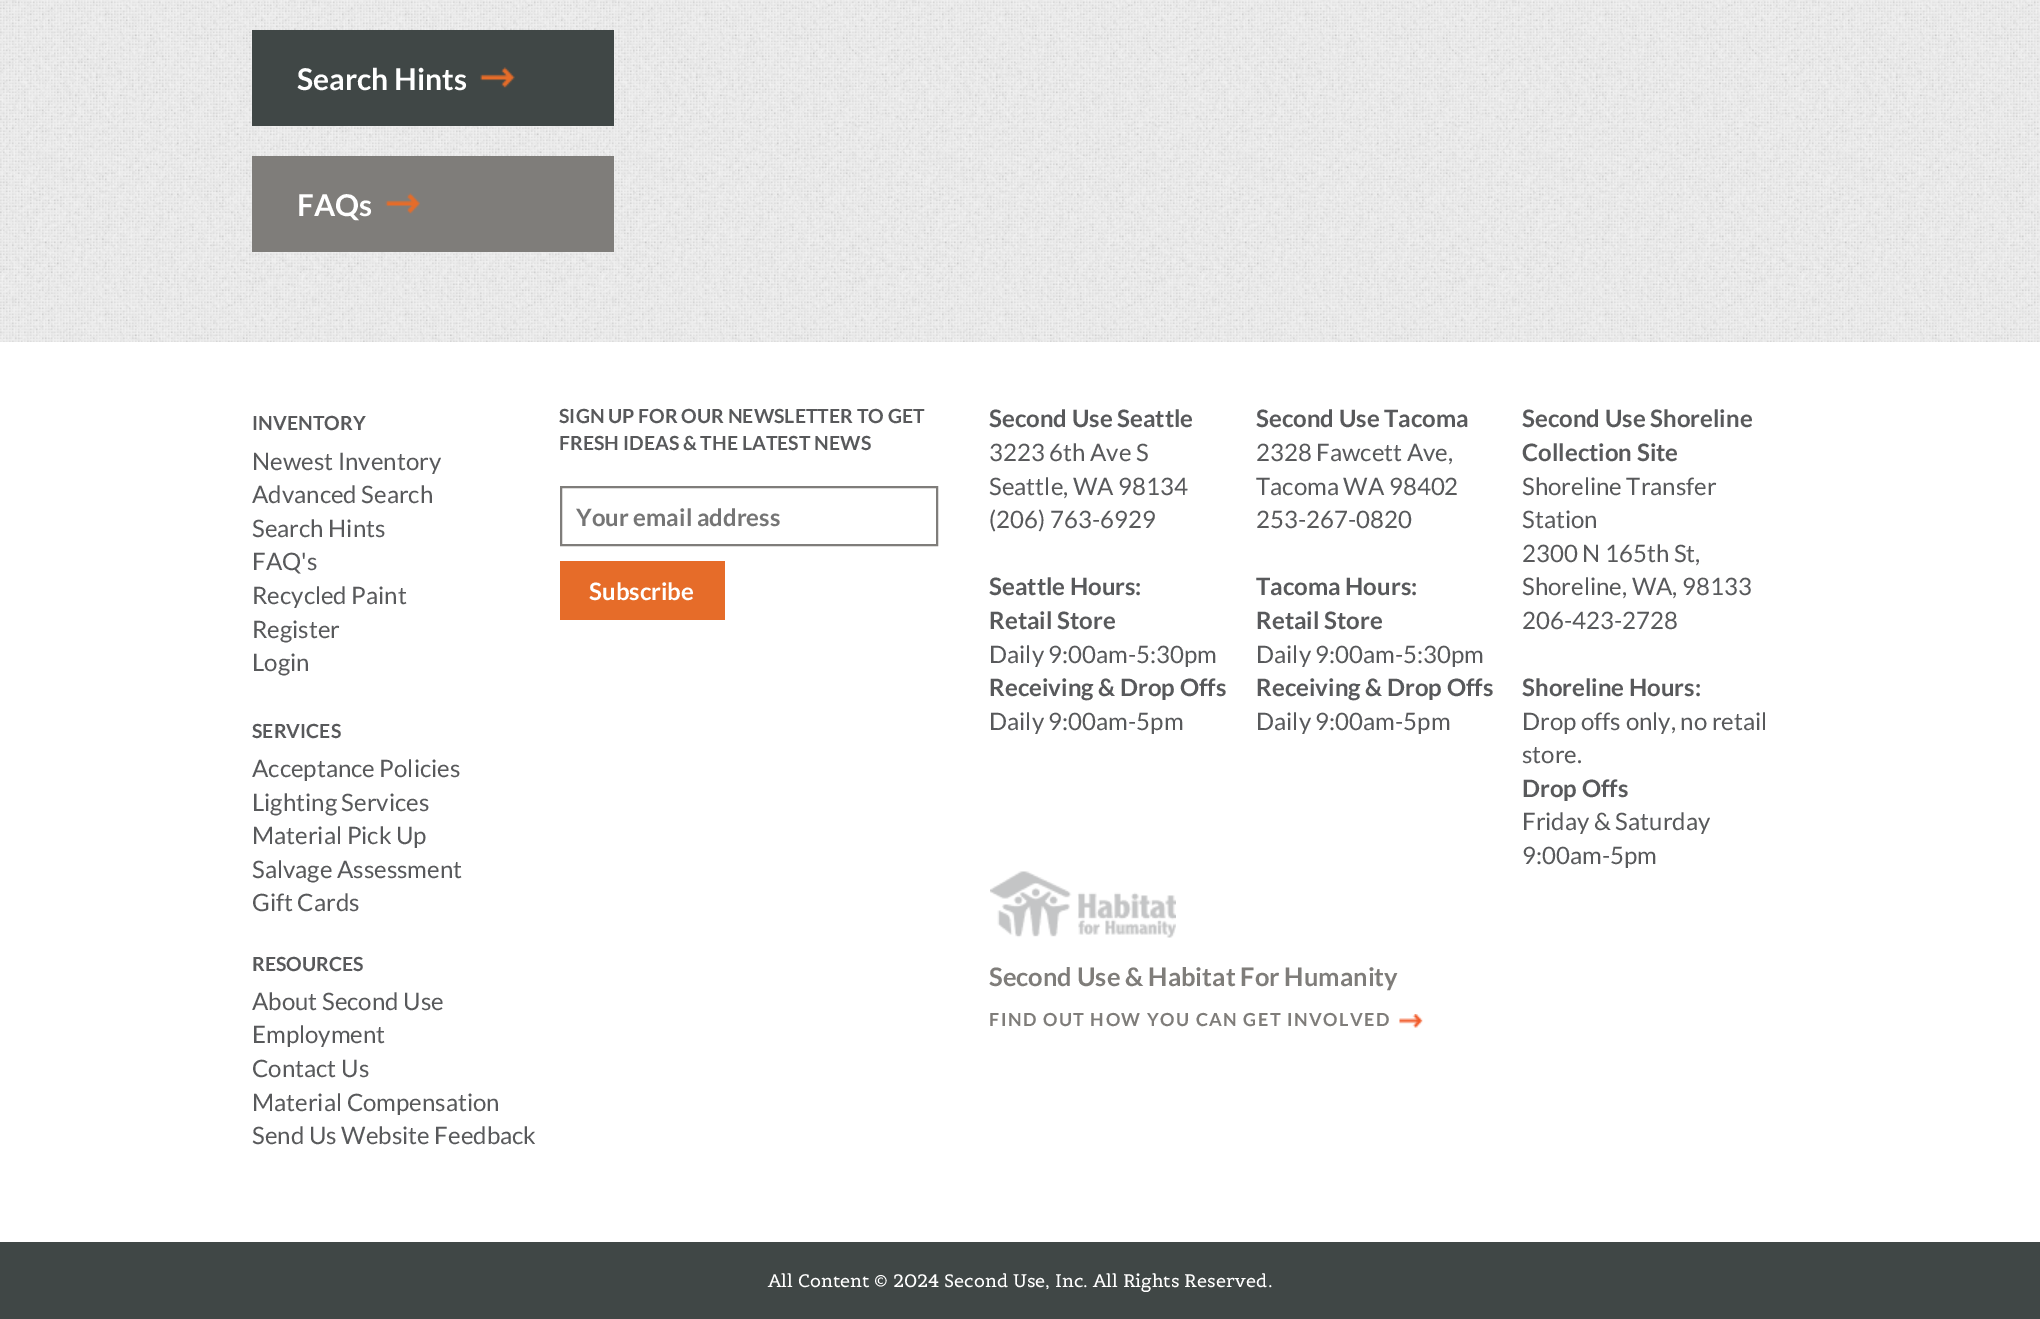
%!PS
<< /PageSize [2040 1319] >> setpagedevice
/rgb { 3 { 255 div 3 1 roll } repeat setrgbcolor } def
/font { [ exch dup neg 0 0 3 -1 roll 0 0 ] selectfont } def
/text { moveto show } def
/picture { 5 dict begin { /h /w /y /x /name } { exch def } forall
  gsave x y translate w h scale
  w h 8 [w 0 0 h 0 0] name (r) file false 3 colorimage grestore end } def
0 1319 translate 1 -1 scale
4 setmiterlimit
255 255 255 rgb
0 0 2040 1319 rectfill
(img_01.rgb) 0 0 2040 342 picture
64 71 70 rgb
252 30 362 96 rectfill
(img_02.rgb) 480 67 35 21 picture
127 125 122 rgb
252 156 362 96 rectfill
(img_03.rgb) 385 193 35 21 picture
2 setlinewidth
561 487 376 58 rectstroke
230 108 41 rgb
560 561 165 59 rectfill
(img_04.rgb) 990 871 186 67 picture
(img_05.rgb) 1399 1014 24 14 picture
64 71 70 rgb
0 1242 2040 77 rectfill
/Lato-Bold 30 font
255 255 255 rgb
(Search Hints) 297 90 text
(FAQs) 297 216 text
/Lato-Bold 19.5 font
88 89 91 rgb
(INVENTORY) 252 430 text
/Lato-Regular 24 font
(Newest Inventory) 252 470 text
(Advanced Search) 252 503 text
(Search Hints) 252 537 text
(FAQ's) 252 570 text
(Recycled Paint) 252 604 text
(Register) 252 638 text
(Login) 252 671 text
/Lato-Bold 19.5 font
(SERVICES) 252 738 text
/Lato-Regular 24 font
(Acceptance Policies) 252 777 text
(Lighting Services) 252 811 text
(Material Pick Up) 252 844 text
(Salvage Assessment) 252 878 text
(Gift Cards) 252 911 text
/Lato-Bold 19.5 font
(RESOURCES) 252 971 text
/Lato-Regular 24 font
(About Second Use) 252 1010 text
(Employment) 252 1043 text
(Contact Us) 252 1077 text
(Material Compensation) 252 1111 text
(Send Us Website Feedback) 252 1144 text
/Lato-Bold 19.5 font
(SIGN UP FOR OUR NEWSLETTER TO GET) 559 423 text
(FRESH IDEAS & THE LATEST NEWS) 559 450 text
/Lato-Bold 24 font
117 117 117 rgb
(Your email address) 576 526 text
255 255 255 rgb
(Subscribe) 589 600 text
88 89 91 rgb
(Second Use Seattle) 989 427 text
/Lato-Regular 24 font
(3223 6th Ave S) 989 461 text
(Seattle, WA 98134) 989 495 text
(\(206\) 763-6929) 989 528 text
/Lato-Bold 24 font
(Seattle Hours:) 989 595 text
(Retail Store) 989 629 text
/Lato-Regular 24 font
(Daily 9:00am-5:30pm) 989 663 text
/Lato-Bold 24 font
(Receiving & Drop Offs) 989 696 text
/Lato-Regular 24 font
(Daily 9:00am-5pm) 989 730 text
/Lato-Bold 24 font
(Second Use Tacoma) 1256 427 text
/Lato-Regular 24 font
(2328 Fawcett Ave,) 1256 461 text
(Tacoma WA 98402) 1256 495 text
(253-267-0820) 1256 528 text
/Lato-Bold 24 font
(Tacoma Hours:) 1256 595 text
(Retail Store) 1256 629 text
/Lato-Regular 24 font
(Daily 9:00am-5:30pm) 1256 663 text
/Lato-Bold 24 font
(Receiving & Drop Offs) 1256 696 text
/Lato-Regular 24 font
(Daily 9:00am-5pm) 1256 730 text
/Lato-Bold 24 font
(Second Use Shoreline) 1522 427 text
(Collection Site) 1522 461 text
/Lato-Regular 24 font
(Shoreline Transfer) 1522 495 text
(Station) 1522 528 text
(2300 N 165th St,) 1522 562 text
(Shoreline, WA, 98133) 1522 595 text
(206-423-2728) 1522 629 text
/Lato-Bold 24 font
(Shoreline Hours:) 1522 696 text
/Lato-Regular 24 font
(Drop offs only, no retail) 1522 730 text
(store.) 1522 763 text
/Lato-Bold 24 font
(Drop Offs) 1522 797 text
/Lato-Regular 24 font
(Friday & Saturday) 1522 830 text
(9:00am-5pm) 1522 864 text
/Lato-Bold 25.5 font
127 125 122 rgb
(Second Use & Habitat For Humanity) 989 986 text
/Lato-Bold 18 font
989 1026 moveto 1.5 0 (FIND OUT HOW YOU CAN GET INVOLVED) ashow
/Belgrano-Regular 18 font
255 255 255 rgb
(All Content © 2024 Second Use, Inc. All Rights Reserved.) 768 1287 text
showpage
